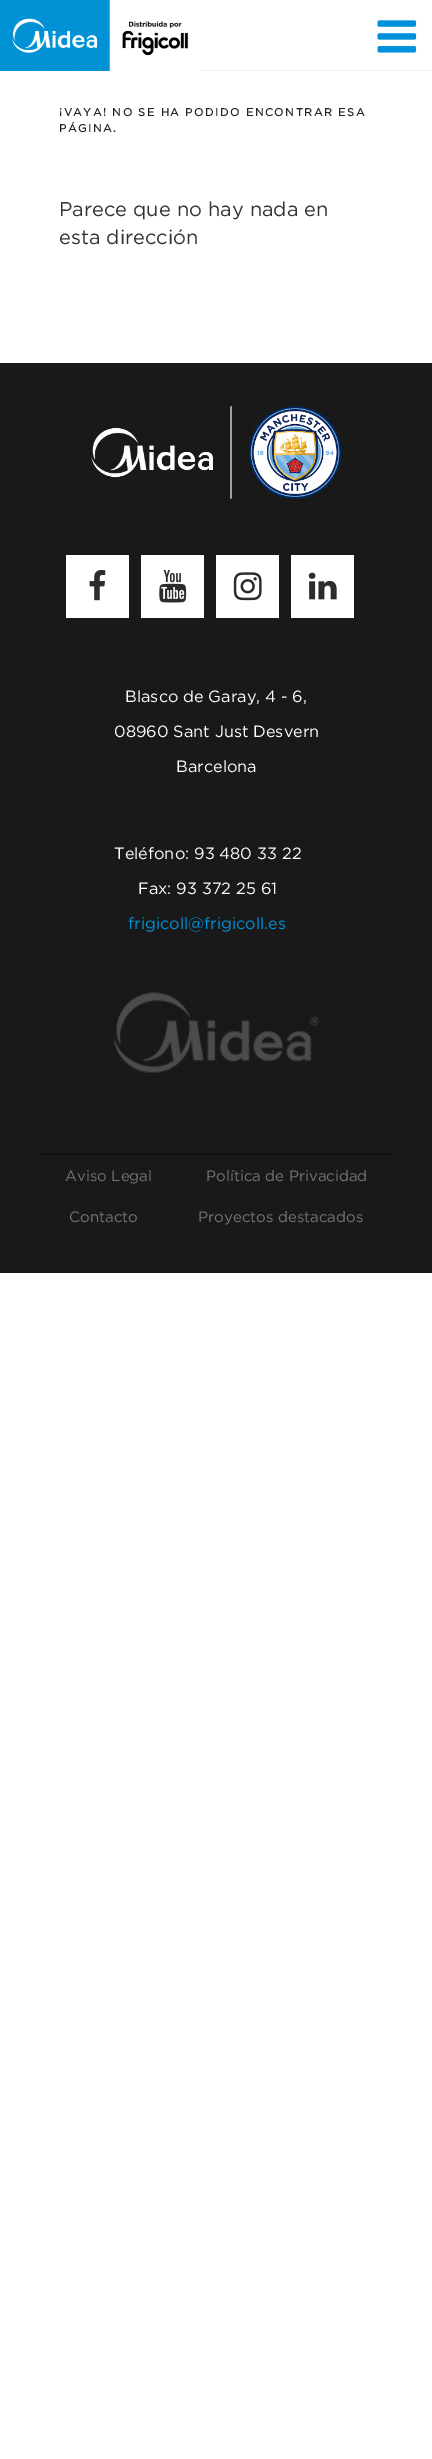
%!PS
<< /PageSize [432 2459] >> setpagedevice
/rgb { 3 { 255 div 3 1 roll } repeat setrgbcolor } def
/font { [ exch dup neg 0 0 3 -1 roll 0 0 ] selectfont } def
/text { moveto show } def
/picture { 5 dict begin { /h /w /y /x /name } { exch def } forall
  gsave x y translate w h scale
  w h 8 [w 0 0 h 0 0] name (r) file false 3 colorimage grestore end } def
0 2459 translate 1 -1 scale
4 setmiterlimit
255 255 255 rgb
0 0 432 2459 rectfill
(img_01.rgb) 0 0 201 71 picture
238 238 238 rgb
201 70 231 1 rectfill
(img_02.rgb) 377 20 40 33 picture
25 25 25 rgb
0 363 432 910 rectfill
(img_03.rgb) 91 406 251 93 picture
255 255 255 rgb
66 555 63 63 rectfill
(img_04.rgb) 89 570 17 31 picture
141 555 63 63 rectfill
(img_05.rgb) 159 570 28 33 picture
216 555 63 63 rectfill
(img_06.rgb) 233 572 29 29 picture
291 555 63 63 rectfill
(img_07.rgb) 308 572 29 28 picture
(img_08.rgb) 113 992 206 81 picture
12 12 12 rgb
39 1154 355 1 rectfill
/Gotham-Bold 10.95 font
34 34 34 rgb
59 116 moveto 1.55 0 (¡VAYA! NO SE HA PODIDO ENCONTRAR ESA) ashow
59 132 moveto 1.55 0 (PÁGINA.) ashow
/Gotham-Regular 20 font
51 51 51 rgb
(Parece que no hay nada en) 59 216 text
(esta dirección) 59 244 text
/Gotham-Regular 16.25 font
255 255 255 rgb
(Blasco de Garay, 4 - 6,) 125 702 text
(08960 Sant Just Desvern) 114 737 text
(Barcelona) 176 772 text
(Teléfono: 93 480 33 22) 114 859 text
(Fax: 93 372 25 61) 138 894 text
0 145 218 rgb
(frigicoll@frigicoll.es) 128 929 text
/Gotham-Regular 15 font
117 117 117 rgb
(Aviso Legal) 65 1181 text
(Política de Privacidad) 206 1181 text
(Contacto) 69 1222 text
(Proyectos destacados) 198 1222 text
showpage
